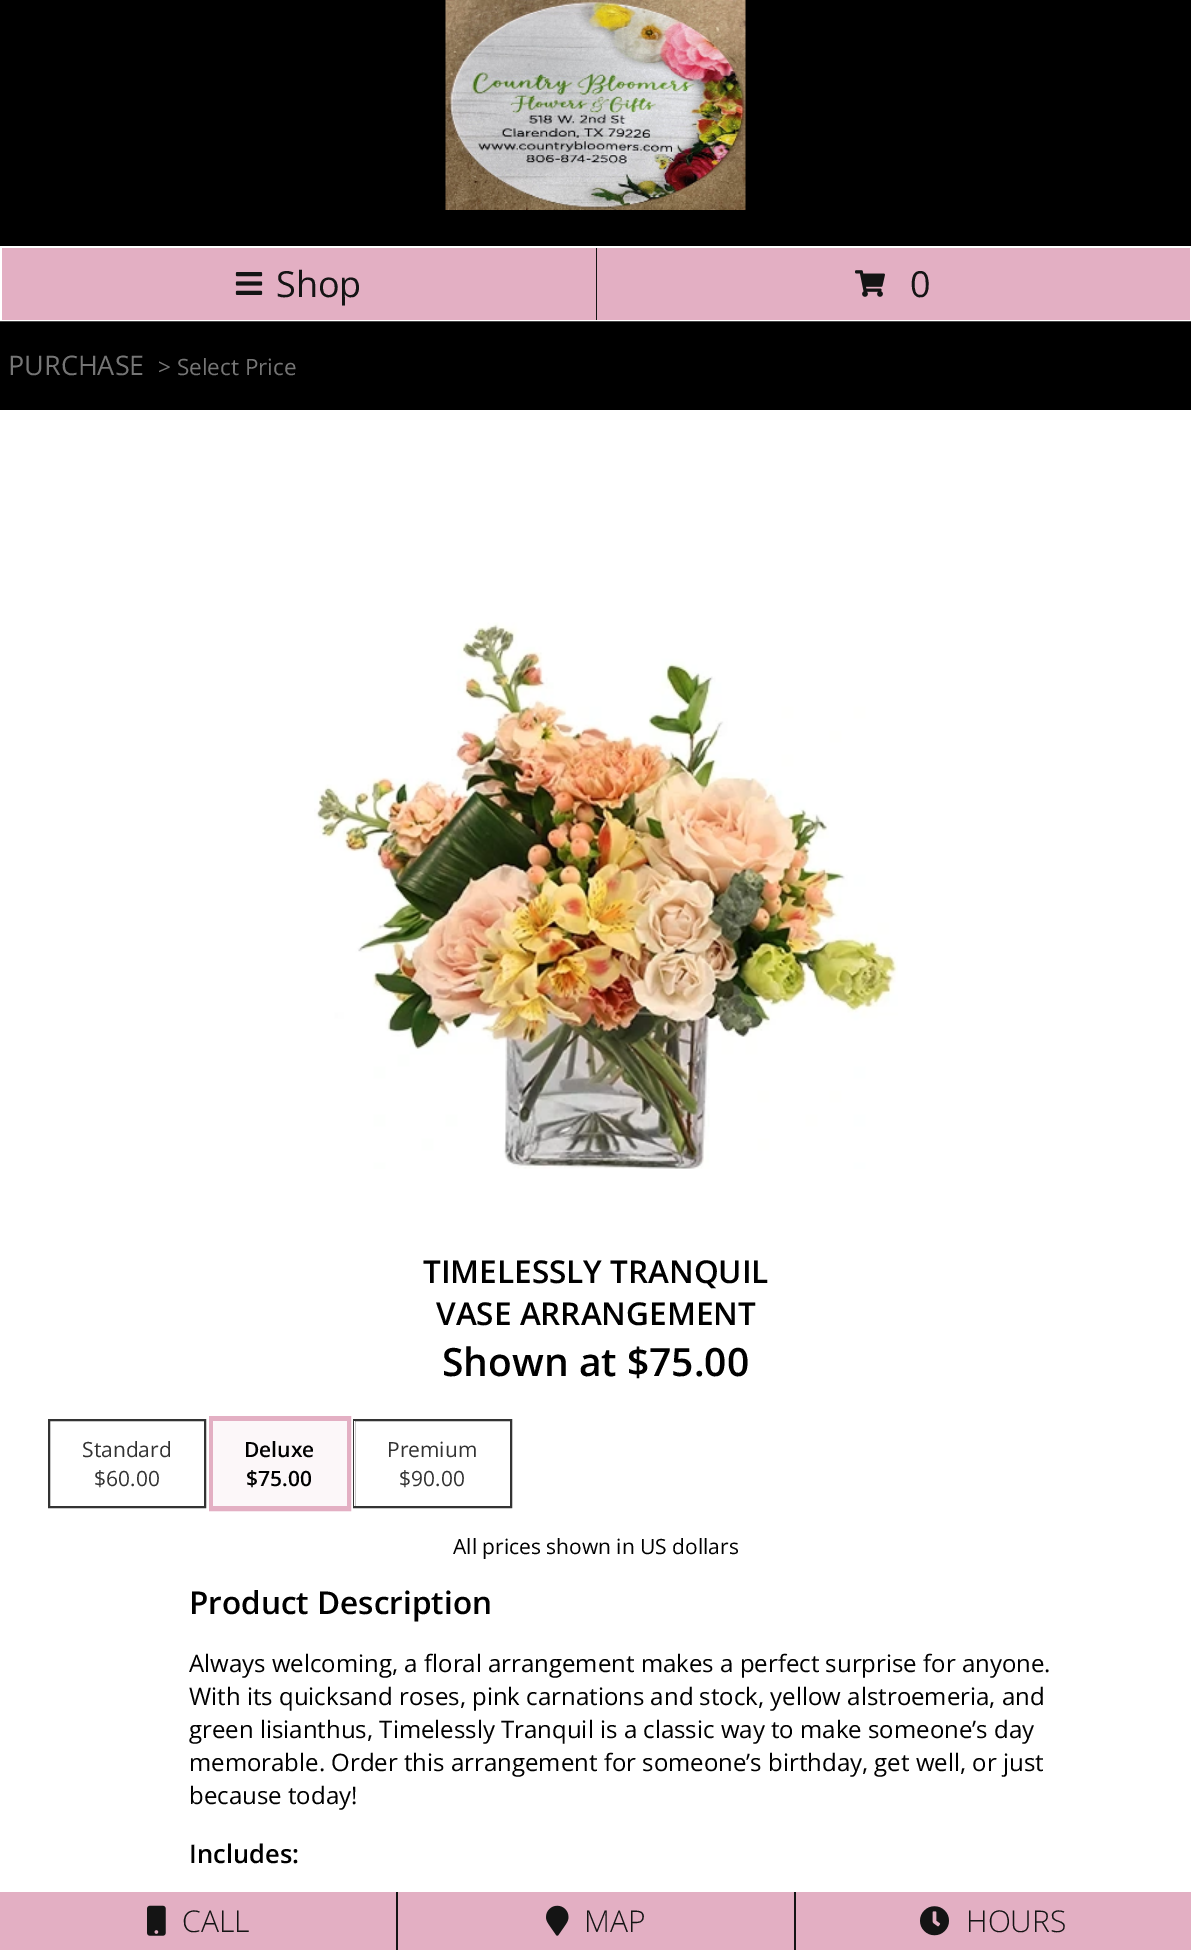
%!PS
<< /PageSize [1191 1950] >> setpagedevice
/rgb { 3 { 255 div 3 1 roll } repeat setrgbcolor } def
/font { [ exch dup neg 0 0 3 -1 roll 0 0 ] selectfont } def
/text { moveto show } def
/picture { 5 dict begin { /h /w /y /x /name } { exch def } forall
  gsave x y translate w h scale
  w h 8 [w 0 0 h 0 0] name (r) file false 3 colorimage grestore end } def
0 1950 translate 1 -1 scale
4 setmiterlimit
0 0 0 rgb
0 0 1191 1950 rectfill
(img_01.rgb) 445 0 301 210 picture
255 255 255 rgb
2 setlinewidth
1 247 1189 73 rectstroke
20 20 20 rgb
596 248 1 72 rectfill
227 175 195 rgb
2 248 594 72 rectfill
(img_02.rgb) 235 272 28 23 picture
597 248 593 72 rectfill
(img_03.rgb) 855 270 30 27 picture
255 255 255 rgb
0 410 1191 1482 rectfill
(img_04.rgb) 314 622 584 547 picture
51 51 51 rgb
49 1420 156 87 rectstroke
227 175 195 rgb
5 setlinewidth
211.5 1418.5 137 90 rectstroke
252 247 249 rgb
213 1421 134 85 rectfill
51 51 51 rgb
2 setlinewidth
354 1420 157 87 rectstroke
255 255 255 rgb
354 1421 1 85 rectfill
227 175 195 rgb
0 1892 396 58 rectfill
(img_05.rgb) 147 1905 19 31 picture
398 1892 396 58 rectfill
20 20 20 rgb
396 1892 2 58 rectfill
(img_06.rgb) 546 1905 23 31 picture
227 175 195 rgb
796 1892 395 58 rectfill
20 20 20 rgb
794 1892 2 58 rectfill
(img_07.rgb) 920 1906 29 30 picture
/OpenSans-Regular 36 font
(Shop) 276 297 text
(0) 910 297 text
/OpenSans-Regular 27 font
117 117 117 rgb
(PURCHASE) 8 375 text
/OpenSans-Regular 22.5 font
(> Select Price) 158 375 text
/OpenSans-SemiBold 31.5 font
0 0 0 rgb
(TIMELESSLY TRANQUIL) 423 1283 text
(VASE ARRANGEMENT) 436 1325 text
/OpenSans-SemiBold 39 font
(Shown at $75.00) 442 1376 text
/OpenSans-Regular 21 font
51 51 51 rgb
(Standard) 82 1457 text
($60.00) 94 1486 text
/OpenSans-SemiBold 21 font
0 0 0 rgb
(Deluxe) 244 1457 text
($75.00) 246 1486 text
/OpenSans-Regular 21 font
51 51 51 rgb
(Premium) 387 1457 text
($90.00) 399 1486 text
0 0 0 rgb
(All prices shown in US dollars) 453 1554 text
/OpenSans-SemiBold 31.5 font
(Product Description) 189 1614 text
/OpenSans-Regular 24 font
(Always welcoming, a floral arrangement makes a perfect surprise for anyone.) 189 1672 text
(With its quicksand roses, pink carnations and stock, yellow alstroemeria, and) 189 1705 text
(green lisianthus, Timelessly Tranquil is a classic way to make someone’s day) 189 1738 text
(memorable. Order this arrangement for someone’s birthday, get well, or just) 189 1771 text
(because today!) 189 1804 text
/OpenSans-SemiBold 25.5 font
(Includes:) 189 1863 text
/OpenSans-Light 30 font
20 20 20 rgb
(CALL) 182 1932 text
(MAP) 584 1932 text
(HOURS) 966 1932 text
showpage
